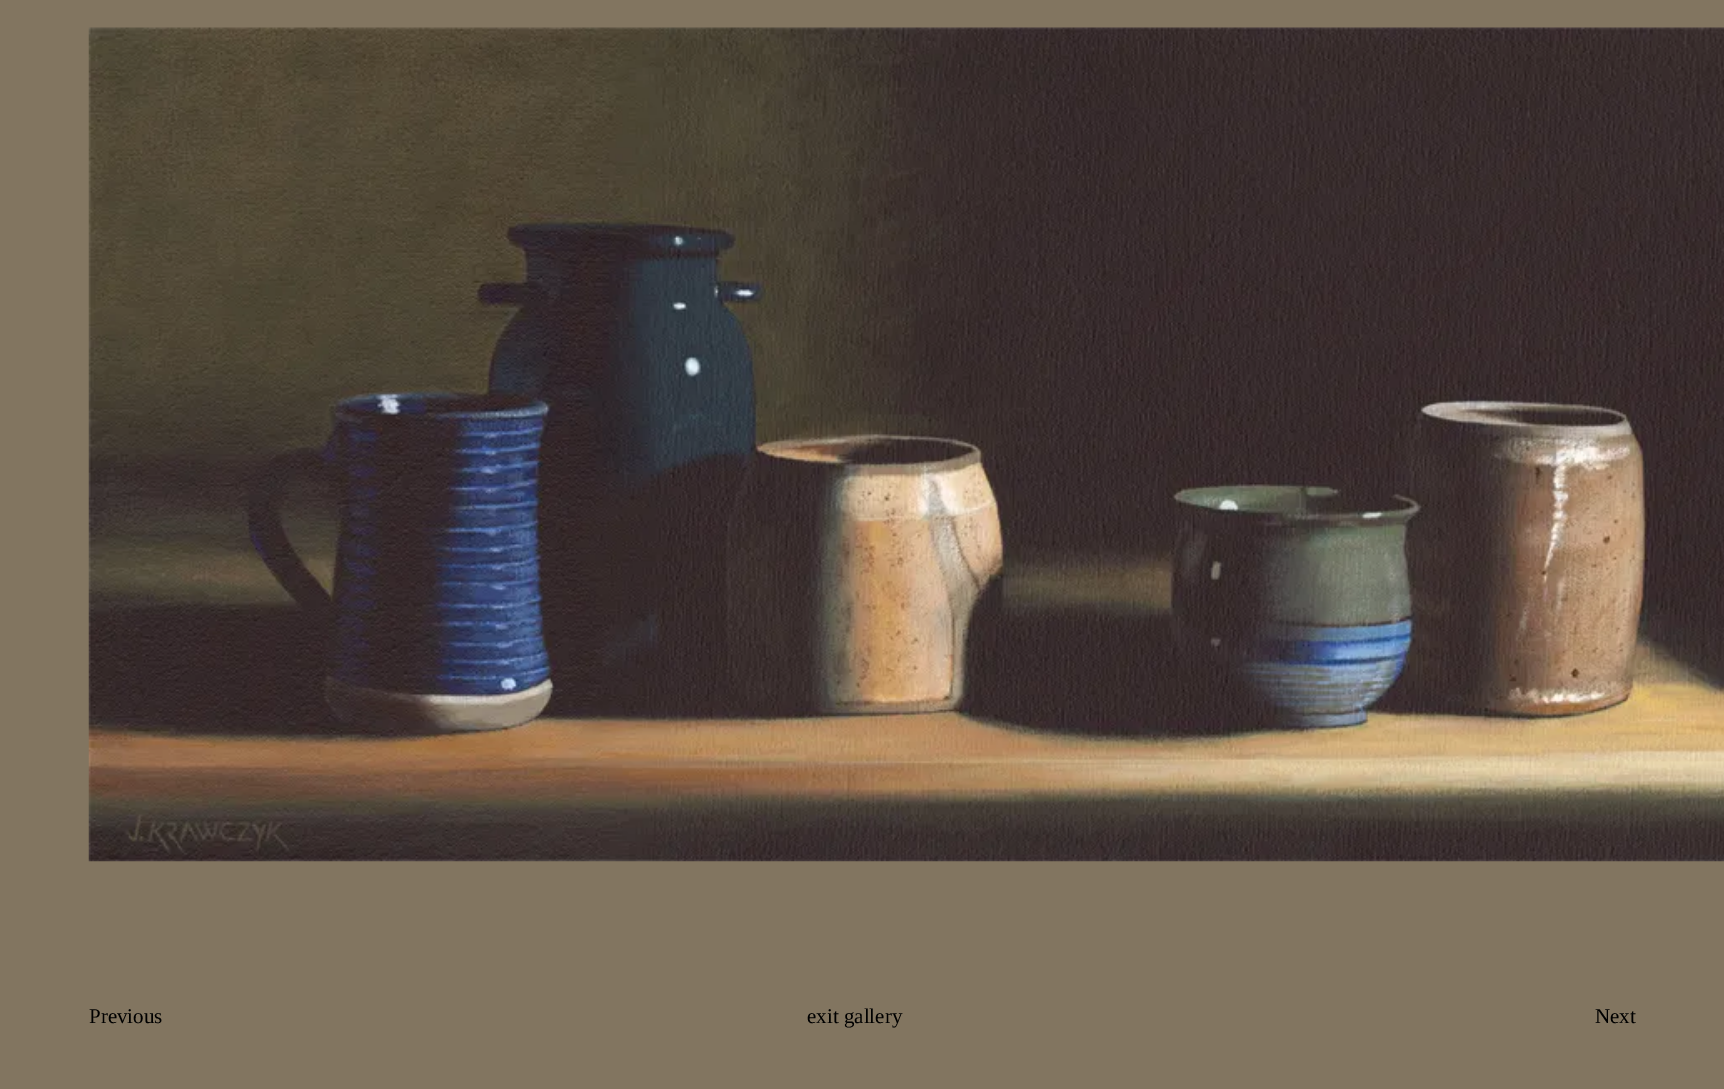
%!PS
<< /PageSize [1724 1089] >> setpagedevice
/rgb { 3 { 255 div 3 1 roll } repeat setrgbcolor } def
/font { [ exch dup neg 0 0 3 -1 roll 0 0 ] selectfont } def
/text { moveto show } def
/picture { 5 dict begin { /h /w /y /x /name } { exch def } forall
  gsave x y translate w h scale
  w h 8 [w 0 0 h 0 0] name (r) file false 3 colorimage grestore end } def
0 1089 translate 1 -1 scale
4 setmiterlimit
130 117 96 rgb
0 0 1724 1089 rectfill
(img_01.rgb) 88 27 1636 835 picture
/LiberationSerif-Regular 21 font
0 0 0 rgb
(Previous) 89 1023 text
(exit gallery) 807 1023 text
(Next) 1595 1023 text
showpage
